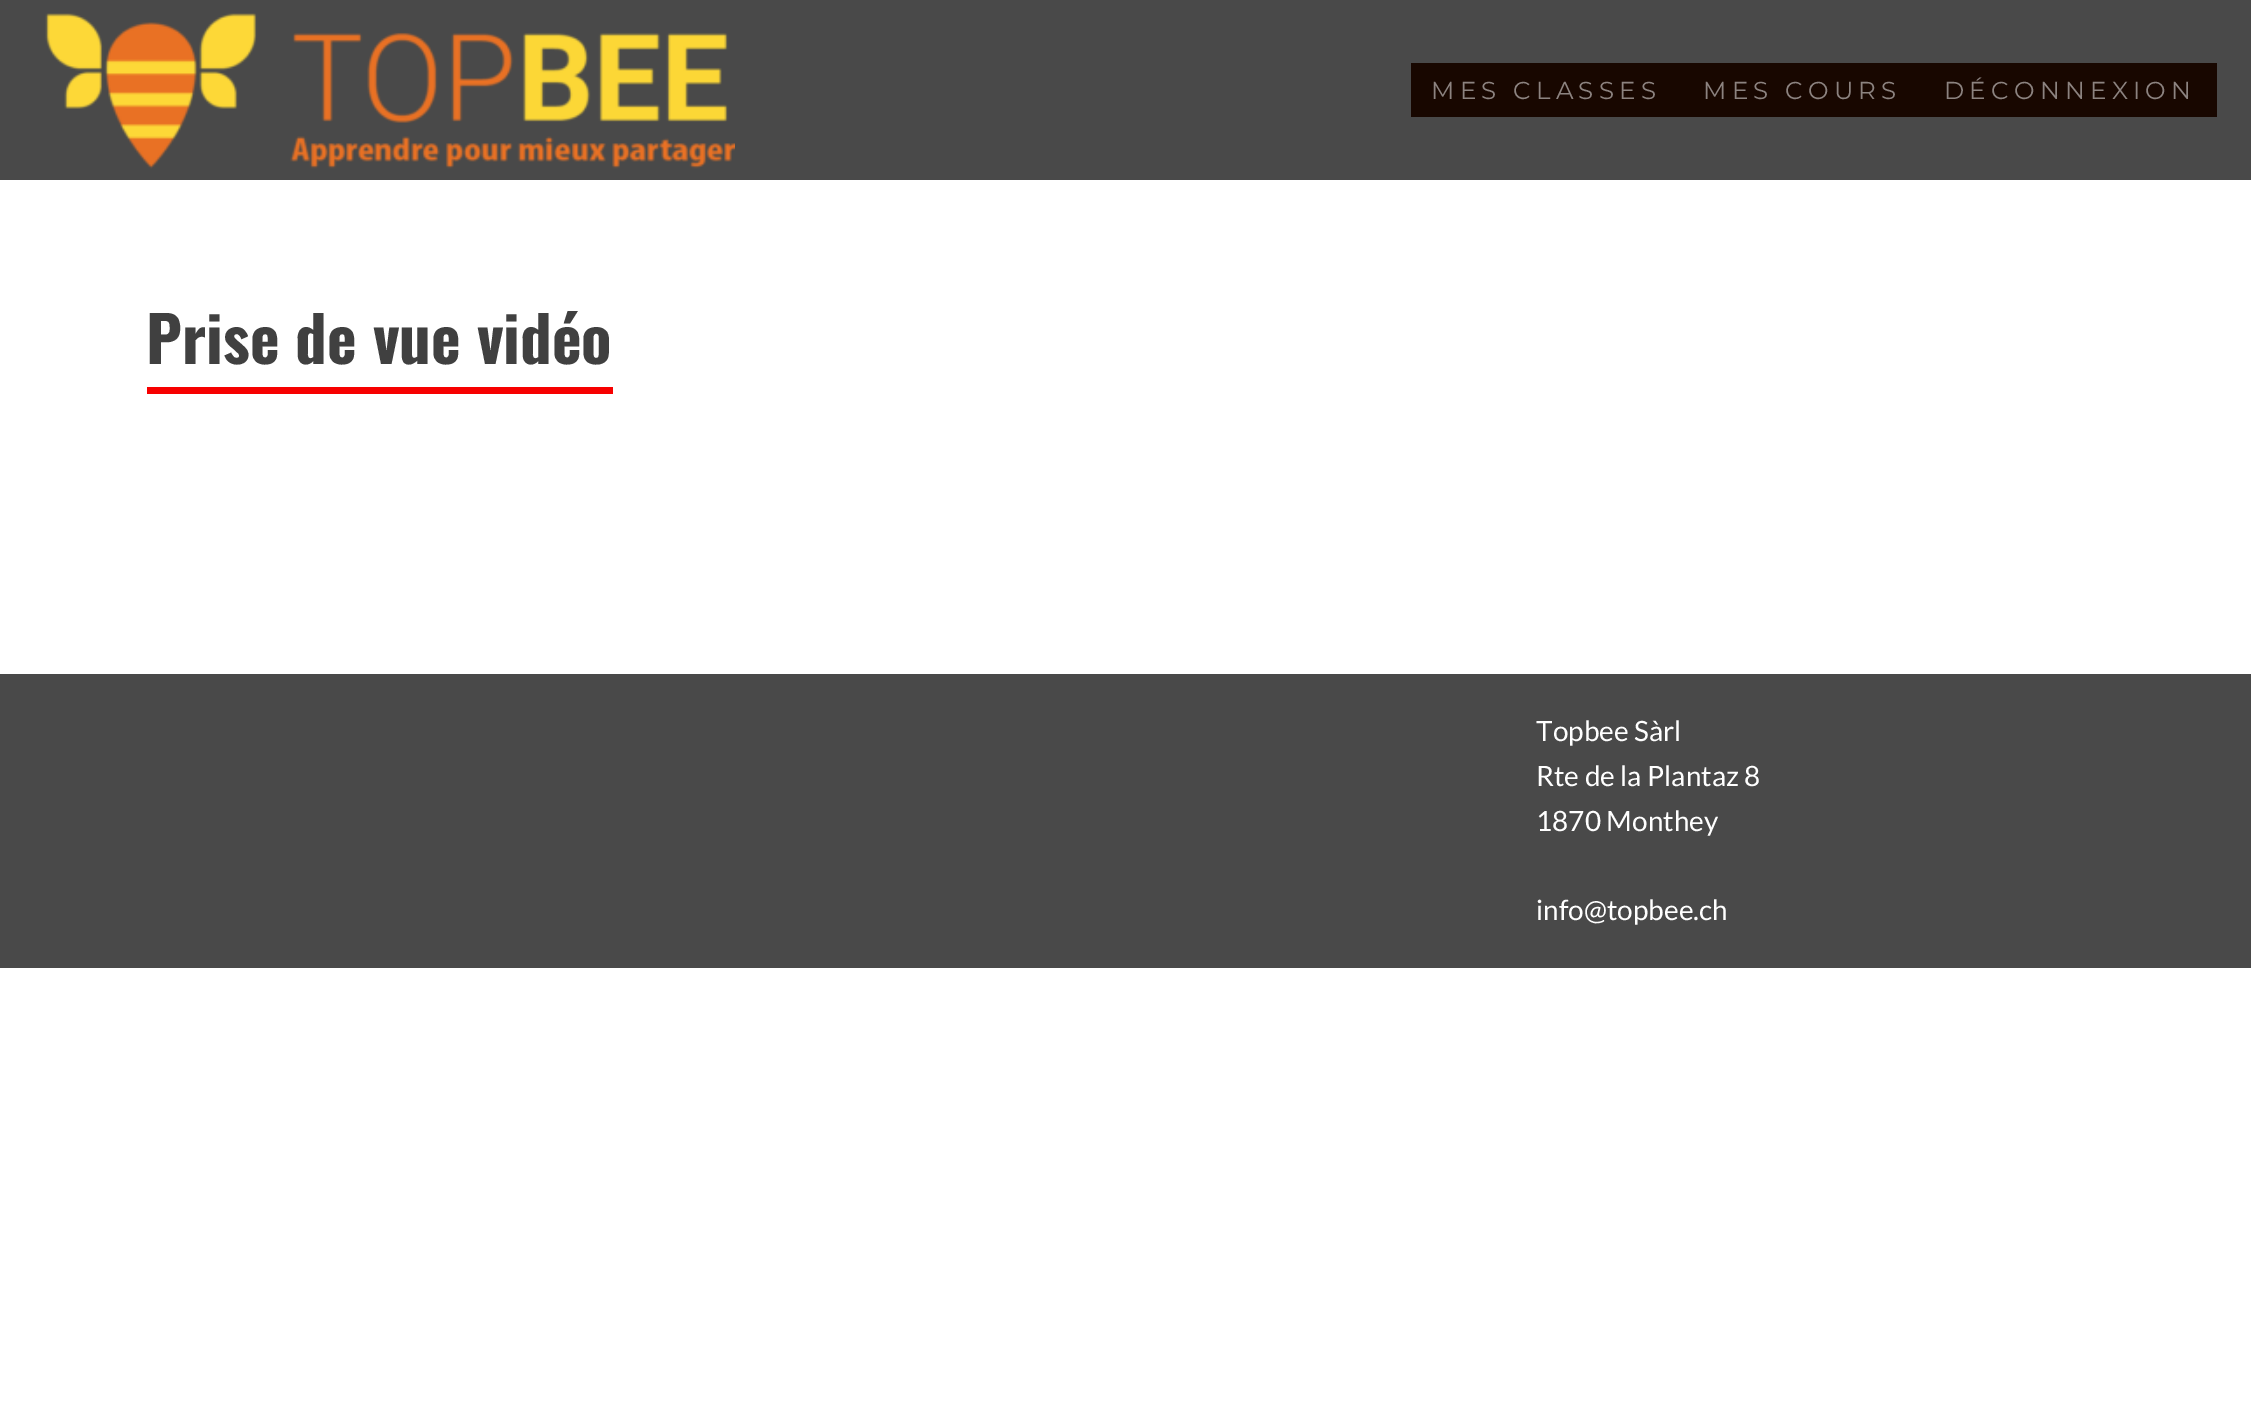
%!PS
<< /PageSize [2251 1418] >> setpagedevice
/rgb { 3 { 255 div 3 1 roll } repeat setrgbcolor } def
/font { [ exch dup neg 0 0 3 -1 roll 0 0 ] selectfont } def
/text { moveto show } def
/picture { 5 dict begin { /h /w /y /x /name } { exch def } forall
  gsave x y translate w h scale
  w h 8 [w 0 0 h 0 0] name (r) file false 3 colorimage grestore end } def
0 1418 translate 1 -1 scale
4 setmiterlimit
255 255 255 rgb
0 0 2251 1418 rectfill
73 73 73 rgb
0 0 2251 180 rectfill
(img_01.rgb) 45 13 690 156 picture
24 7 0 rgb
1411 63 806 54 rectfill
247 0 0 rgb
147 387 466 7 rectfill
73 73 73 rgb
0 674 2251 294 rectfill
/Montserrat-Regular 24.5 font
140 131 128 rgb
1431 99 moveto 5.25 0 (MES CLASSES) ashow
1703 99 moveto 5.25 0 (MES COURS) ashow
1944 99 moveto 5.25 0 (DÉCONNEXION) ashow
/Oswald-Bold 63 font
64 64 64 rgb
(Prise de vue vidéo) 146 364 text
/Lato-Regular 28 font
255 255 255 rgb
(Topbee Sàrl) 1536 741 text
(Rte de la Plantaz 8) 1536 786 text
(1870 Monthey) 1536 831 text
(info@topbee.ch) 1536 920 text
showpage
